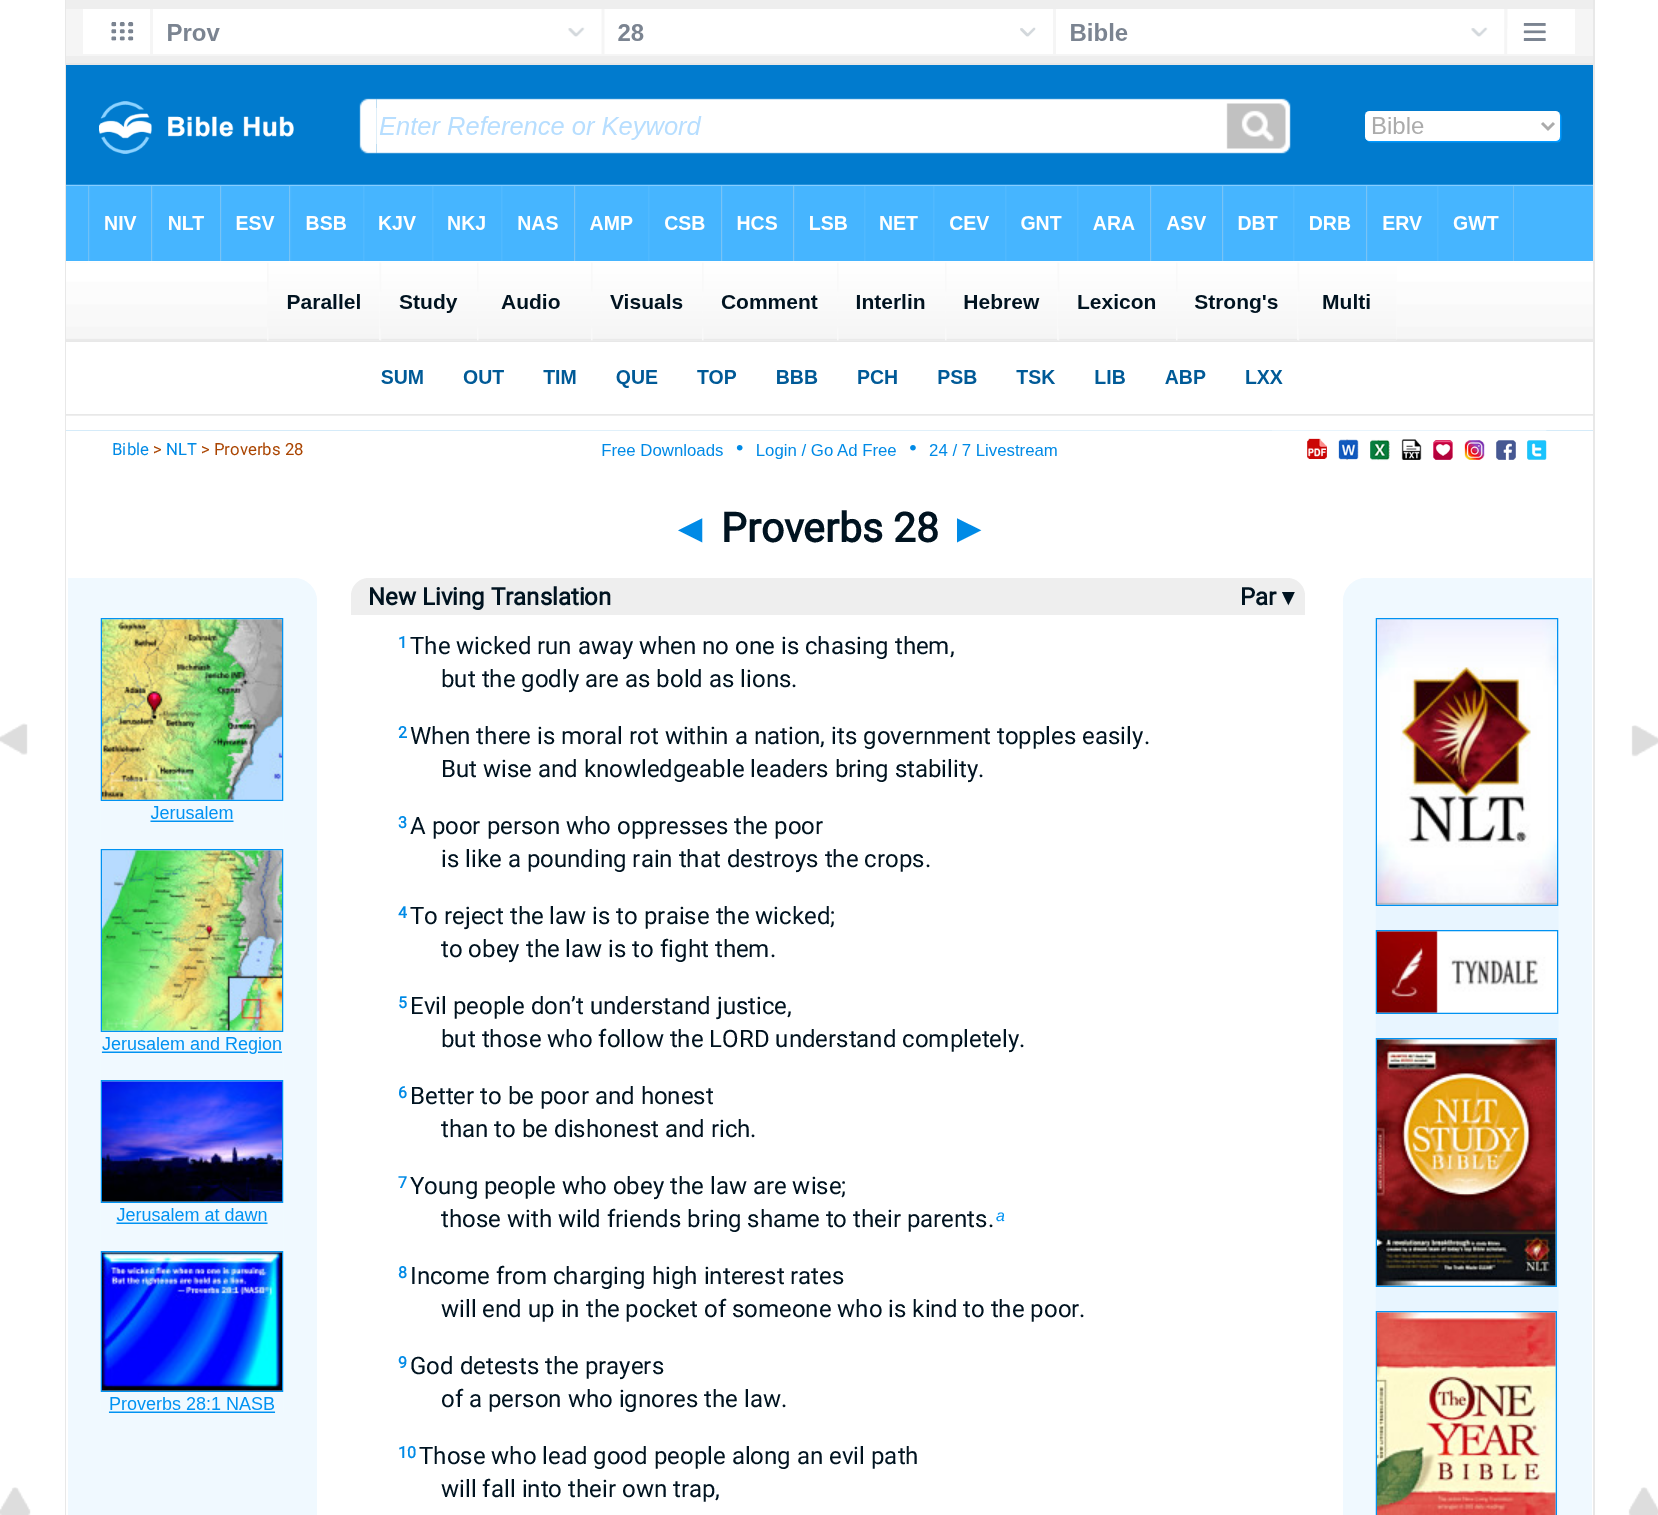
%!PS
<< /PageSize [1658 1515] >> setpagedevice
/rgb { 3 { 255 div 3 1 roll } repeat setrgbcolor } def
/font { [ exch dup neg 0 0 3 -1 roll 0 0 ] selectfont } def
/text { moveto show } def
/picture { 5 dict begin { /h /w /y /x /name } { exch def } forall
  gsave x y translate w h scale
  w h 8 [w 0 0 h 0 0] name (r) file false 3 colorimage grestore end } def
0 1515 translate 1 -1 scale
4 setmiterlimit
255 255 255 rgb
0 0 1658 1515 rectfill
232 232 232 rgb
65 63 moveto 0 368 rlineto 1527 0 rlineto 0 -1 rlineto -1526 0 rlineto 0 -367 rlineto closepath fill
68 430 moveto 0 1 rlineto 1527 0 rlineto 0 -368 rlineto -2 0 rlineto 0 367 rlineto closepath fill
66 63 1527 2 rectfill
1593 0 2 63 rectfill
65 0 1 63 rectfill
238 238 238 rgb
66 0 1527 63 rectfill
245 245 245 rgb
66 9 1527 47 rectfill
(img_01.rgb) 83 9 1492 45 picture
255 255 255 rgb
66 430 1527 1 rectfill
(img_02.rgb) 66 65 1527 366 picture
232 232 232 rgb
65 431 moveto 0 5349 rlineto 1527 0 rlineto -1526 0 rlineto 0 -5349 rlineto closepath fill
68 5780 moveto 1527 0 rlineto 0 -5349 rlineto -2 0 rlineto 0 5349 rlineto closepath fill
(img_03.rgb) 570 430 519 29 picture
(img_04.rgb) 1089 430 458 31 picture
(img_05.rgb) 0 723 28 32 picture
240 249 255 rgb
68 578 moveto 226 0 rlineto 12.5 0 23 10.5 23 23 rcurveto 0 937 rlineto -249 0 rlineto closepath fill
(img_06.rgb) 100 618 184 795 picture
238 238 238 rgb
369 578 moveto 918 0 rlineto 10 0 18 8 18 18 rcurveto 0 19 rlineto -954 0 rlineto 0 -19 rlineto 0 -10 8 -18 18 -18 rcurveto closepath fill
240 249 255 rgb
1366 578 moveto 226 0 rlineto 0 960 rlineto -249 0 rlineto 0 -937 rlineto 0 -12.5 10.5 -23 23 -23 rcurveto closepath fill
(img_07.rgb) 1375 618 184 897 picture
(img_08.rgb) 1631 725 27 32 picture
(img_09.rgb) 0 1487 31 28 picture
(img_10.rgb) 1628 1487 30 28 picture
/Roboto-Regular 16.75 font
0 138 230 rgb
(Bible) 112 455 text
170 68 0 rgb
(>) 153 455 text
0 138 230 rgb
(NLT) 166 455 text
170 68 0 rgb
(> Proverbs 28) 201 455 text
/LiberationSans-Bold 40.75 font
0 138 230 rgb
(◄) 670 542 text
/Roboto-Bold 40.75 font
0 19 32 rgb
(Proverbs 28) 721 542 text
/LiberationSans-Bold 40.75 font
0 138 230 rgb
(►) 949 542 text
/Roboto-Bold 24 font
0 19 32 rgb
(New Living Translation) 368 605 text
(Par) 1240 605 text
/DejaVuSans-Bold 24 font
(▾) 1282 605 text
/Roboto-Bold 16 font
0 138 230 rgb
(1) 398 648 text
/Roboto-Regular 24 font
0 19 32 rgb
(The wicked run away when no one is chasing them,) 410 654 text
(but the godly are as bold as lions.) 441 687 text
/Roboto-Bold 16 font
0 138 230 rgb
(2) 398 738 text
/Roboto-Regular 24 font
0 19 32 rgb
(When there is moral rot within a nation, its government topples easily.) 410 744 text
(But wise and knowledgeable leaders bring stability.) 441 777 text
/Roboto-Bold 16 font
0 138 230 rgb
(3) 398 828 text
/Roboto-Regular 24 font
0 19 32 rgb
(A poor person who oppresses the poor) 410 834 text
(is like a pounding rain that destroys the crops.) 441 867 text
/Roboto-Bold 16 font
0 138 230 rgb
(4) 398 918 text
/Roboto-Regular 24 font
0 19 32 rgb
(To reject the law is to praise the wicked;) 410 924 text
(to obey the law is to fight them.) 441 957 text
/Roboto-Bold 16 font
0 138 230 rgb
(5) 398 1008 text
/Roboto-Regular 24 font
0 19 32 rgb
(Evil people don’t understand justice,) 410 1014 text
(but those who follow the LORD understand completely.) 441 1047 text
/Roboto-Bold 16 font
0 138 230 rgb
(6) 398 1098 text
/Roboto-Regular 24 font
0 19 32 rgb
(Better to be poor and honest) 410 1104 text
(than to be dishonest and rich.) 441 1137 text
/Roboto-Bold 16 font
0 138 230 rgb
(7) 398 1188 text
/Roboto-Regular 24 font
0 19 32 rgb
(Young people who obey the law are wise;) 410 1194 text
(those with wild friends bring shame to their parents.) 441 1227 text
/LiberationSans-Italic 16 font
0 146 242 rgb
(a) 996 1221 text
/Roboto-Bold 16 font
0 138 230 rgb
(8) 398 1278 text
/Roboto-Regular 24 font
0 19 32 rgb
(Income from charging high interest rates) 410 1284 text
(will end up in the pocket of someone who is kind to the poor.) 441 1317 text
/Roboto-Bold 16 font
0 138 230 rgb
(9) 398 1368 text
/Roboto-Regular 24 font
0 19 32 rgb
(God detests the prayers) 410 1374 text
(of a person who ignores the law.) 441 1407 text
/Roboto-Bold 16 font
0 138 230 rgb
(10) 398 1458 text
/Roboto-Regular 24 font
0 19 32 rgb
(Those who lead good people along an evil path) 419 1464 text
(will fall into their own trap,) 441 1497 text
showpage
